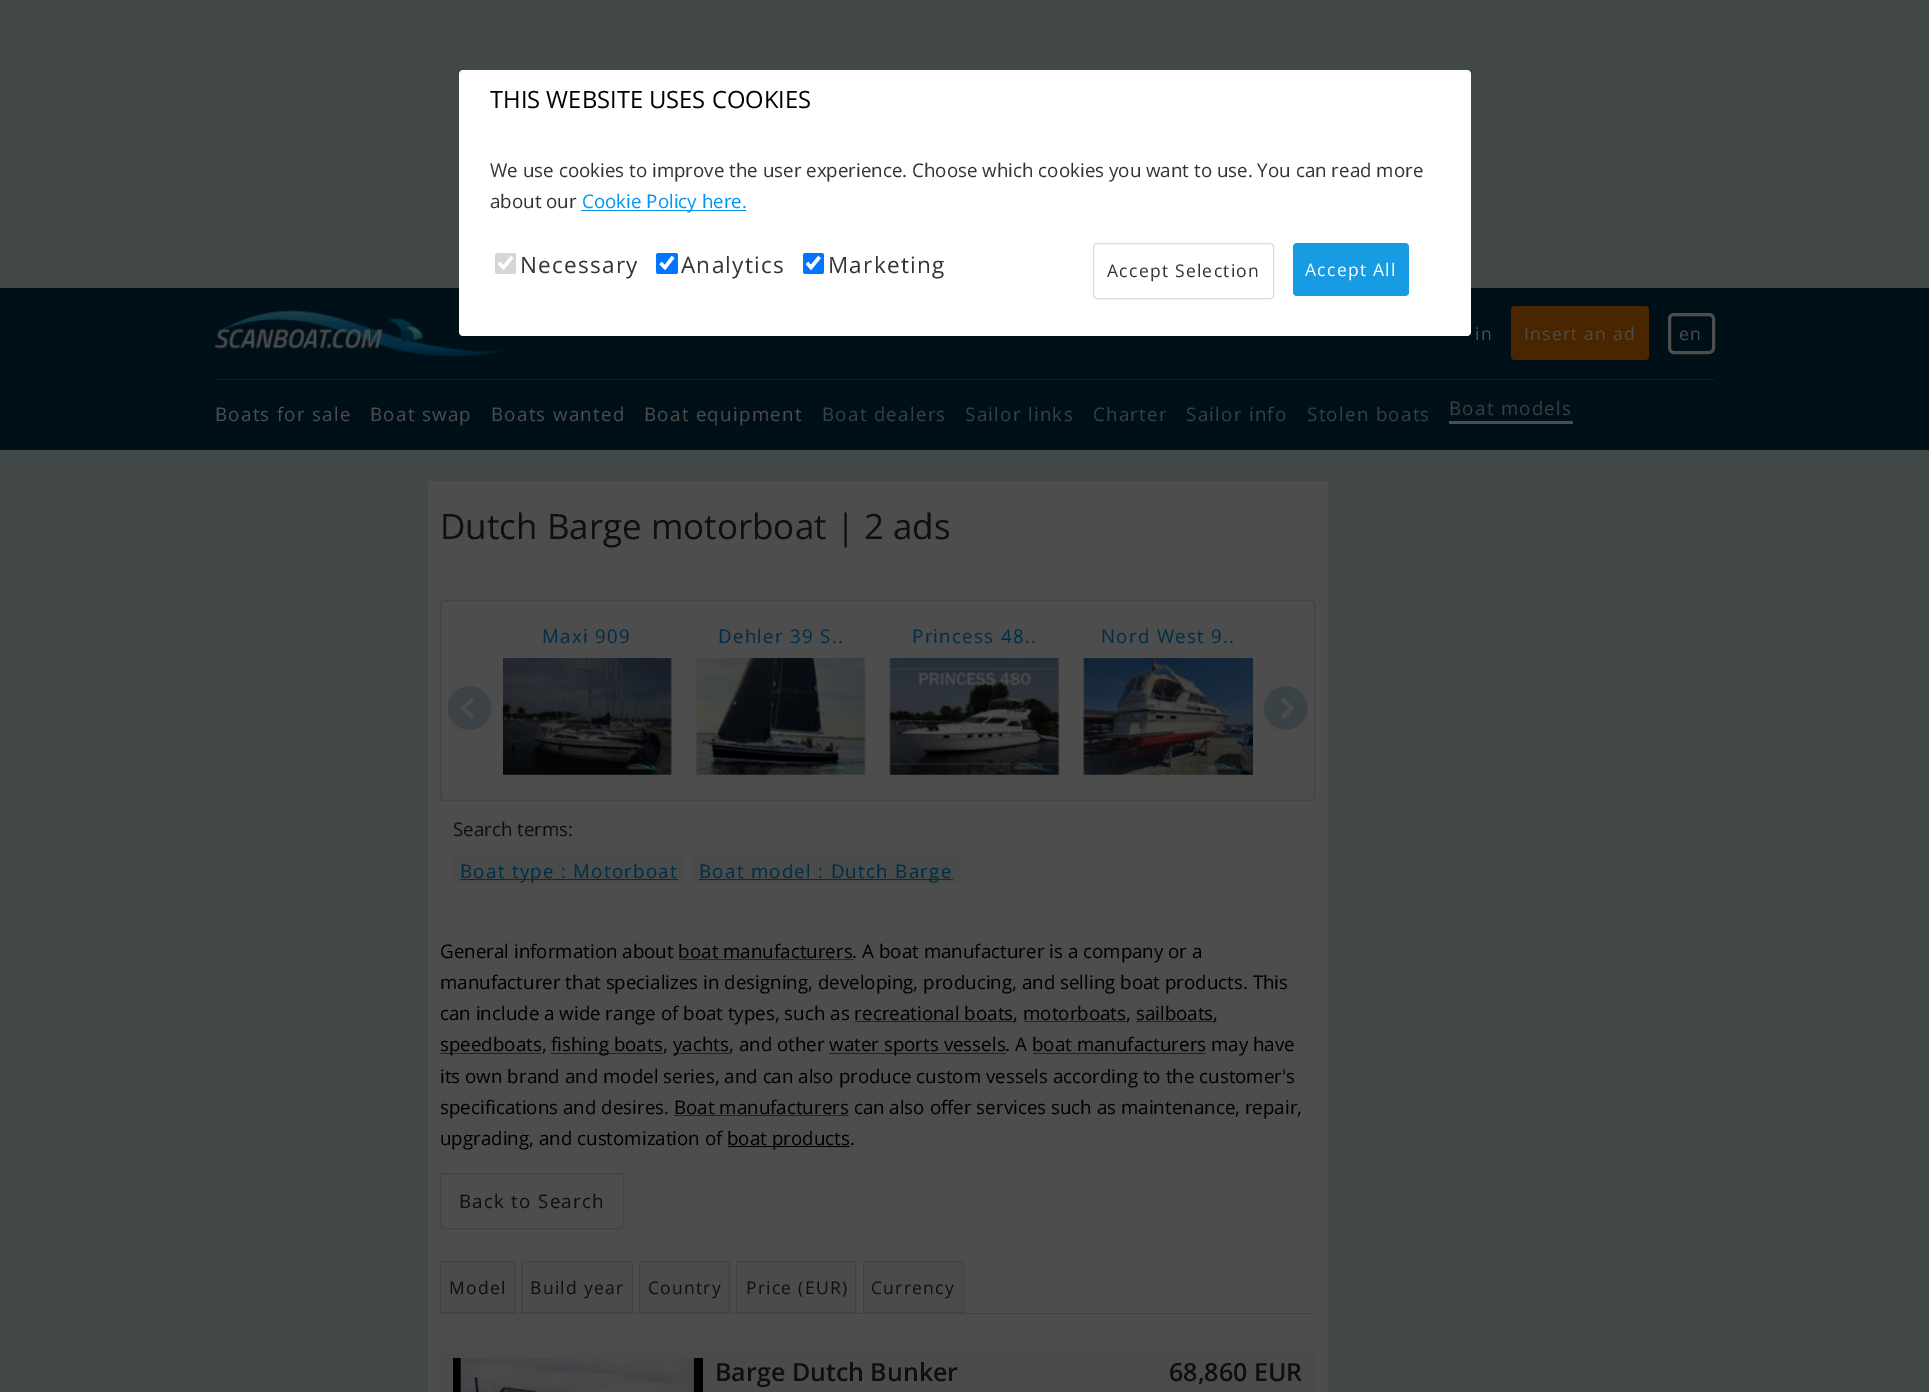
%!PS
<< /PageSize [1929 1392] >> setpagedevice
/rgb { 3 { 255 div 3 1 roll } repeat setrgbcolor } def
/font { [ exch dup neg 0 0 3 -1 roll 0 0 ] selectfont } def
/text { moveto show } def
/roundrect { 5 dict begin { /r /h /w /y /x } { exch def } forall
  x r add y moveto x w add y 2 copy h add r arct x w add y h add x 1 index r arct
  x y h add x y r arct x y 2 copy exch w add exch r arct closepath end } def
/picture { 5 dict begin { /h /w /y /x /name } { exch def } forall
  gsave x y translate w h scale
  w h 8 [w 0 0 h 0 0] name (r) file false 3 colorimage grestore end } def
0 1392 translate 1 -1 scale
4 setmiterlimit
66 71 72 rgb
0 0 1929 1392 rectfill
255 255 255 rgb
463 70 moveto 1004 0 rlineto 2 0 4 2 4 4 rcurveto 0 56 rlineto -1012 0 rlineto 0 -56 rlineto 0 -2 2 -4 4 -4 rcurveto closepath fill
0 16 24 rgb
0 288 1929 162 rectfill
(img_01.rgb) 215 310 286 46 picture
255 255 255 rgb
459 130 moveto 1012 0 rlineto 0 202 rlineto 0 2 -2 4 -4 4 rcurveto -1004 0 rlineto -2 0 -4 -2 -4 -4 rcurveto closepath fill
0 149 238 rgb
581 210 165 1 rectfill
214 214 214 rgb
495 253 21 21 2.5 roundrect fill
255 255 255 rgb
3.4 setlinewidth
499 263 moveto 4.5 4.5 rlineto 8.5 -10.5 rlineto stroke
0 117 255 rgb
656 253 22 21 2.5 roundrect fill
255 255 255 rgb
660.5 263 moveto 4.5 4.5 rlineto 8 -10.5 rlineto stroke
0 117 255 rgb
803 253 21 21 2.5 roundrect fill
255 255 255 rgb
807 263 moveto 4 4.5 rlineto 8.5 -10.5 rlineto stroke
219 220 227 rgb
1 setlinewidth
1093.5 243.5 180 55 3.5 roundrect stroke
23 155 227 rgb
1293 243 116 53 4 roundrect fill
15 28 35 rgb
215 379 1500 1 rectfill
73 37 0 rgb
1511 306 138 54 4 roundrect fill
77 77 77 rgb
3 setlinewidth
1669.5 314.5 44 38 4.5 roundrect stroke
1449 421 124 3 rectfill
428 481 900 911 rectfill
66 66 68 rgb
1 setlinewidth
440.5 600.5 874 200 3.5 roundrect stroke
(img_02.rgb) 503 658 169 117 picture
(img_03.rgb) 695 658 171 117 picture
(img_04.rgb) 889 658 171 117 picture
(img_05.rgb) 1083 658 170 117 picture
(img_06.rgb) 448 686 43 44 picture
(img_07.rgb) 1264 686 44 44 picture
74 75 75 rgb
453 856 232 29 4 roundrect fill
0 45 71 rgb
460 879 218 1 rectfill
74 75 75 rgb
691 856 269 29 4 roundrect fill
0 45 71 rgb
699 879 254 1 rectfill
440 1053 101 1 rectfill
551 1053 112 1 rectfill
673 1053 56 1 rectfill
829 1053 177 1 rectfill
0 0 0 rgb
728 1146 122 1 rectfill
66 66 68 rgb
440.5 1173.5 183 55 3.5 roundrect stroke
440 1313 875 1 rectfill
74 75 75 rgb
444 1261.5 moveto 67 0 rlineto 2 0 3.5 1.5 3.5 3.5 rcurveto 0 47.5 rlineto -74 0 rlineto 0 -47.5 rlineto 0 -2 1.5 -3.5 3.5 -3.5 rcurveto closepath gsave fill grestore
66 66 68 rgb
stroke
74 75 75 rgb
525 1261.5 moveto 104 0 rlineto 2 0 3.5 1.5 3.5 3.5 rcurveto 0 47.5 rlineto -111 0 rlineto 0 -47.5 rlineto 0 -2 1.5 -3.5 3.5 -3.5 rcurveto closepath gsave fill grestore
66 66 68 rgb
stroke
74 75 75 rgb
643 1261.5 moveto 83 0 rlineto 2 0 3.5 1.5 3.5 3.5 rcurveto 0 47.5 rlineto -90 0 rlineto 0 -47.5 rlineto 0 -2 1.5 -3.5 3.5 -3.5 rcurveto closepath gsave fill grestore
66 66 68 rgb
stroke
74 75 75 rgb
740 1261.5 moveto 112 0 rlineto 2 0 3.5 1.5 3.5 3.5 rcurveto 0 47.5 rlineto -119 0 rlineto 0 -47.5 rlineto 0 -2 1.5 -3.5 3.5 -3.5 rcurveto closepath gsave fill grestore
66 66 68 rgb
stroke
74 75 75 rgb
867 1261.5 moveto 93 0 rlineto 2 0 3.5 1.5 3.5 3.5 rcurveto 0 47.5 rlineto -100 0 rlineto 0 -47.5 rlineto 0 -2 1.5 -3.5 3.5 -3.5 rcurveto closepath gsave fill grestore
66 66 68 rgb
stroke
73 75 76 rgb
440 1345 875 47 rectfill
(img_08.rgb) 453 1358 250 34 picture
/OpenSans-Regular 23.75 font
0 0 0 rgb
(THIS WEBSITE USES COOKIES) 490 108 text
/OpenSans-Regular 18.75 font
51 51 51 rgb
(We use cookies to improve the user experience. Choose which cookies you want to use. You can read more) 490 177 text
(about our) 490 208 text
0 149 238 rgb
(Cookie Policy here.) 582 208 text
/OpenSans-Regular 22.5 font
51 51 51 rgb
520 273 moveto 1.25 0 (Necessary) ashow
681 273 moveto 1.25 0 (Analytics) ashow
828 273 moveto 1.25 0 (Marketing) ashow
/OpenSans-Regular 17.5 font
1107 277 moveto 1.25 0 (Accept Selection) ashow
255 255 255 rgb
1305 276 moveto 1.25 0 (Accept All) ashow
77 77 77 rgb
1475 340 moveto 1.25 0 (in) ashow
1524 340 moveto 1.25 0 (Insert an ad) ashow
1679 340 moveto 1.25 0 (en) ashow
/OpenSans-Regular 18.75 font
215 421 moveto 1.25 0 (Boats for sale) ashow
370 421 moveto 1.25 0 (Boat swap) ashow
491 421 moveto 1.25 0 (Boats wanted) ashow
644 421 moveto 1.25 0 (Boat equipment) ashow
57 63 66 rgb
822 421 moveto 1.25 0 (Boat dealers) ashow
965 421 moveto 1.25 0 (Sailor links) ashow
1093 421 moveto 1.25 0 (Charter) ashow
1186 421 moveto 1.25 0 (Sailor info) ashow
1307 421 moveto 1.25 0 (Stolen boats) ashow
1449 415 moveto 1.25 0 (Boat models) ashow
/OpenSans-Regular 35 font
15 15 15 rgb
(Dutch Barge motorboat | 2 ads) 440 539 text
/OpenSans-Regular 18.75 font
0 45 71 rgb
542 643 moveto 1.25 0 (Maxi 909) ashow
718 643 moveto 1.25 0 (Dehler 39 S..) ashow
912 643 moveto 1.25 0 (Princess 48..) ashow
1101 643 moveto 1.25 0 (Nord West 9..) ashow
15 15 15 rgb
(Search terms:) 453 836 text
0 45 71 rgb
460 878 moveto 1.25 0 (Boat type : Motorboat) ashow
699 878 moveto 1.25 0 (Boat model : Dutch Barge) ashow
0 0 0 rgb
(General information about boat manufacturers. A boat manufacturer is a company or a) 440 958 text
0 45 71 rgb
679 959 174 1 rectfill
0 0 0 rgb
(manufacturer that specializes in designing, developing, producing, and selling boat products. This) 440 989 text
(can include a wide range of boat types, such as recreational boats, motorboats, sailboats,) 440 1020 text
0 45 71 rgb
855 1021 159 1 rectfill
1024 1021 102 1 rectfill
1136 1021 78 1 rectfill
0 0 0 rgb
(speedboats,) 440 1051 text
(fishing boats,) 551 1051 text
(yachts, and other) 673 1051 text
(water sports vessels. A boat manufacturers may have) 829 1051 text
0 45 71 rgb
1033 1053 173 1 rectfill
0 0 0 rgb
(its own brand and model series, and can also produce custom vessels according to the customer's) 440 1083 text
(specifications and desires. Boat manufacturers can also offer services such as maintenance, repair,) 440 1114 text
0 45 71 rgb
674 1115 175 1 rectfill
0 0 0 rgb
(upgrading, and customization of) 440 1145 text
(boat products.) 727 1145 text
15 15 15 rgb
459 1208 moveto 1.25 0 (Back to Search) ashow
/OpenSans-Regular 17.5 font
449 1294 moveto 1.25 0 (Model) ashow
530 1294 moveto 1.25 0 (Build year) ashow
648 1294 moveto 1.25 0 (Country) ashow
746 1294 moveto 1.25 0 (Price \(EUR\)) ashow
871 1294 moveto 1.25 0 (Currency) ashow
/OpenSans-SemiBold 25 font
(Barge Dutch Bunker) 715 1381 text
(68,860 EUR) 1169 1381 text
showpage
